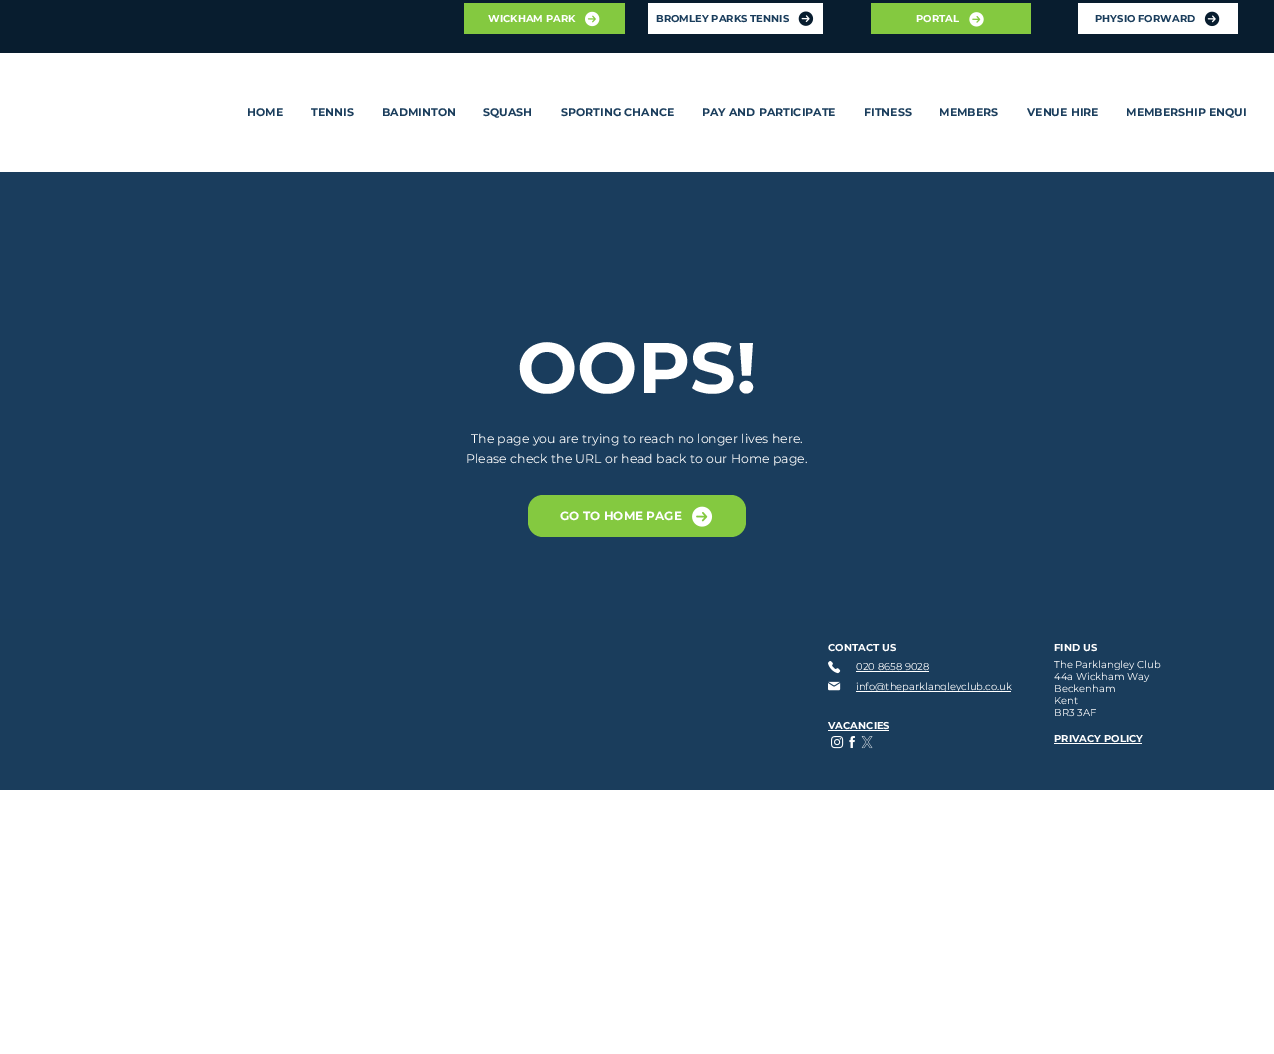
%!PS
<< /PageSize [1274 1054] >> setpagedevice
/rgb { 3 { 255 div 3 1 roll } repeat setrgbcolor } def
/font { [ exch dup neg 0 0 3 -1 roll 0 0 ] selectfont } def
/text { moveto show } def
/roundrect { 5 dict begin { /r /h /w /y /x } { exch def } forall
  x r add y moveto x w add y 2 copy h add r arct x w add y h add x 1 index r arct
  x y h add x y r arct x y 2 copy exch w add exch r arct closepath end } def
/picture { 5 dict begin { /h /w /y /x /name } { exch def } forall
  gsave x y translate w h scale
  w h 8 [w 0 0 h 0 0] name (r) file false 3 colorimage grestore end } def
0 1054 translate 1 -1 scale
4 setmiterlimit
255 255 255 rgb
0 0 1274 1054 rectfill
8 29 47 rgb
0 0 1274 53 rectfill
132 201 64 rgb
464 3 161 31 rectfill
(img_01.rgb) 585 11 15 16 picture
255 255 255 rgb
648 3 175 31 rectfill
(img_02.rgb) 798 11 16 15 picture
132 201 64 rgb
871 3 160 31 rectfill
(img_03.rgb) 969 12 15 15 picture
255 255 255 rgb
1078 3 160 31 rectfill
(img_04.rgb) 1204 11 16 16 picture
26 61 93 rgb
0 172 1274 447 rectfill
132 201 64 rgb
528 495 218 42 15 roundrect fill
(img_05.rgb) 692 506 21 21 picture
26 61 92 rgb
0 619 1274 171 rectfill
(img_06.rgb) 828 661 13 13 picture
255 255 255 rgb
856 671 73 1 rectfill
(img_07.rgb) 828 681 13 10 picture
856 691 155 1 rectfill
828 730 61 1 rectfill
(img_08.rgb) 831 736 13 13 picture
(img_09.rgb) 849 736 6 13 picture
(img_10.rgb) 861 736 12 13 picture
1054 743 88 1 rectfill
/Montserrat-Bold 10 font
(WICKHAM PARK) 488 22 text
26 61 92 rgb
(BROMLEY PARKS TENNIS) 656 22 text
255 255 255 rgb
(PORTAL) 916 22 text
26 61 92 rgb
(PHYSIO FORWARD) 1095 22 text
/Montserrat-Bold 11 font
(HOME) 247 116 text
(TENNIS) 311 116 text
(BADMINTON) 382 116 text
(SQUASH) 483 116 text
(SPORTING CHANCE) 561 116 text
(PAY AND PARTICIPATE) 702 116 text
(FITNESS) 864 116 text
(MEMBERS) 939 116 text
(VENUE HIRE) 1027 116 text
(MEMBERSHIP ENQUI) 1126 116 text
/Montserrat-Bold 71.5 font
255 255 255 rgb
(OOPS!) 517 393 text
/Montserrat-Regular 12.5 font
(The page you are trying to reach no longer lives here.) 471 443 text
(Please check the URL or head back to our Home page.) 466 463 text
/Montserrat-Bold 12 font
(GO TO HOME PAGE) 560 520 text
/Montserrat-Bold 10 font
(CONTACT US) 828 651 text
(FIND US) 1054 651 text
/Montserrat-Regular 10 font
(020 8658 9028) 856 670 text
(The Parklangley Club) 1054 668 text
(44a Wickham Way) 1054 680 text
(Beckenham) 1054 692 text
(Kent) 1054 704 text
(BR3 3AF) 1054 716 text
(info@theparklangleyclub.co.uk) 856 690 text
/Montserrat-Bold 10 font
(VACANCIES) 828 729 text
(PRIVACY POLICY) 1054 742 text
showpage
